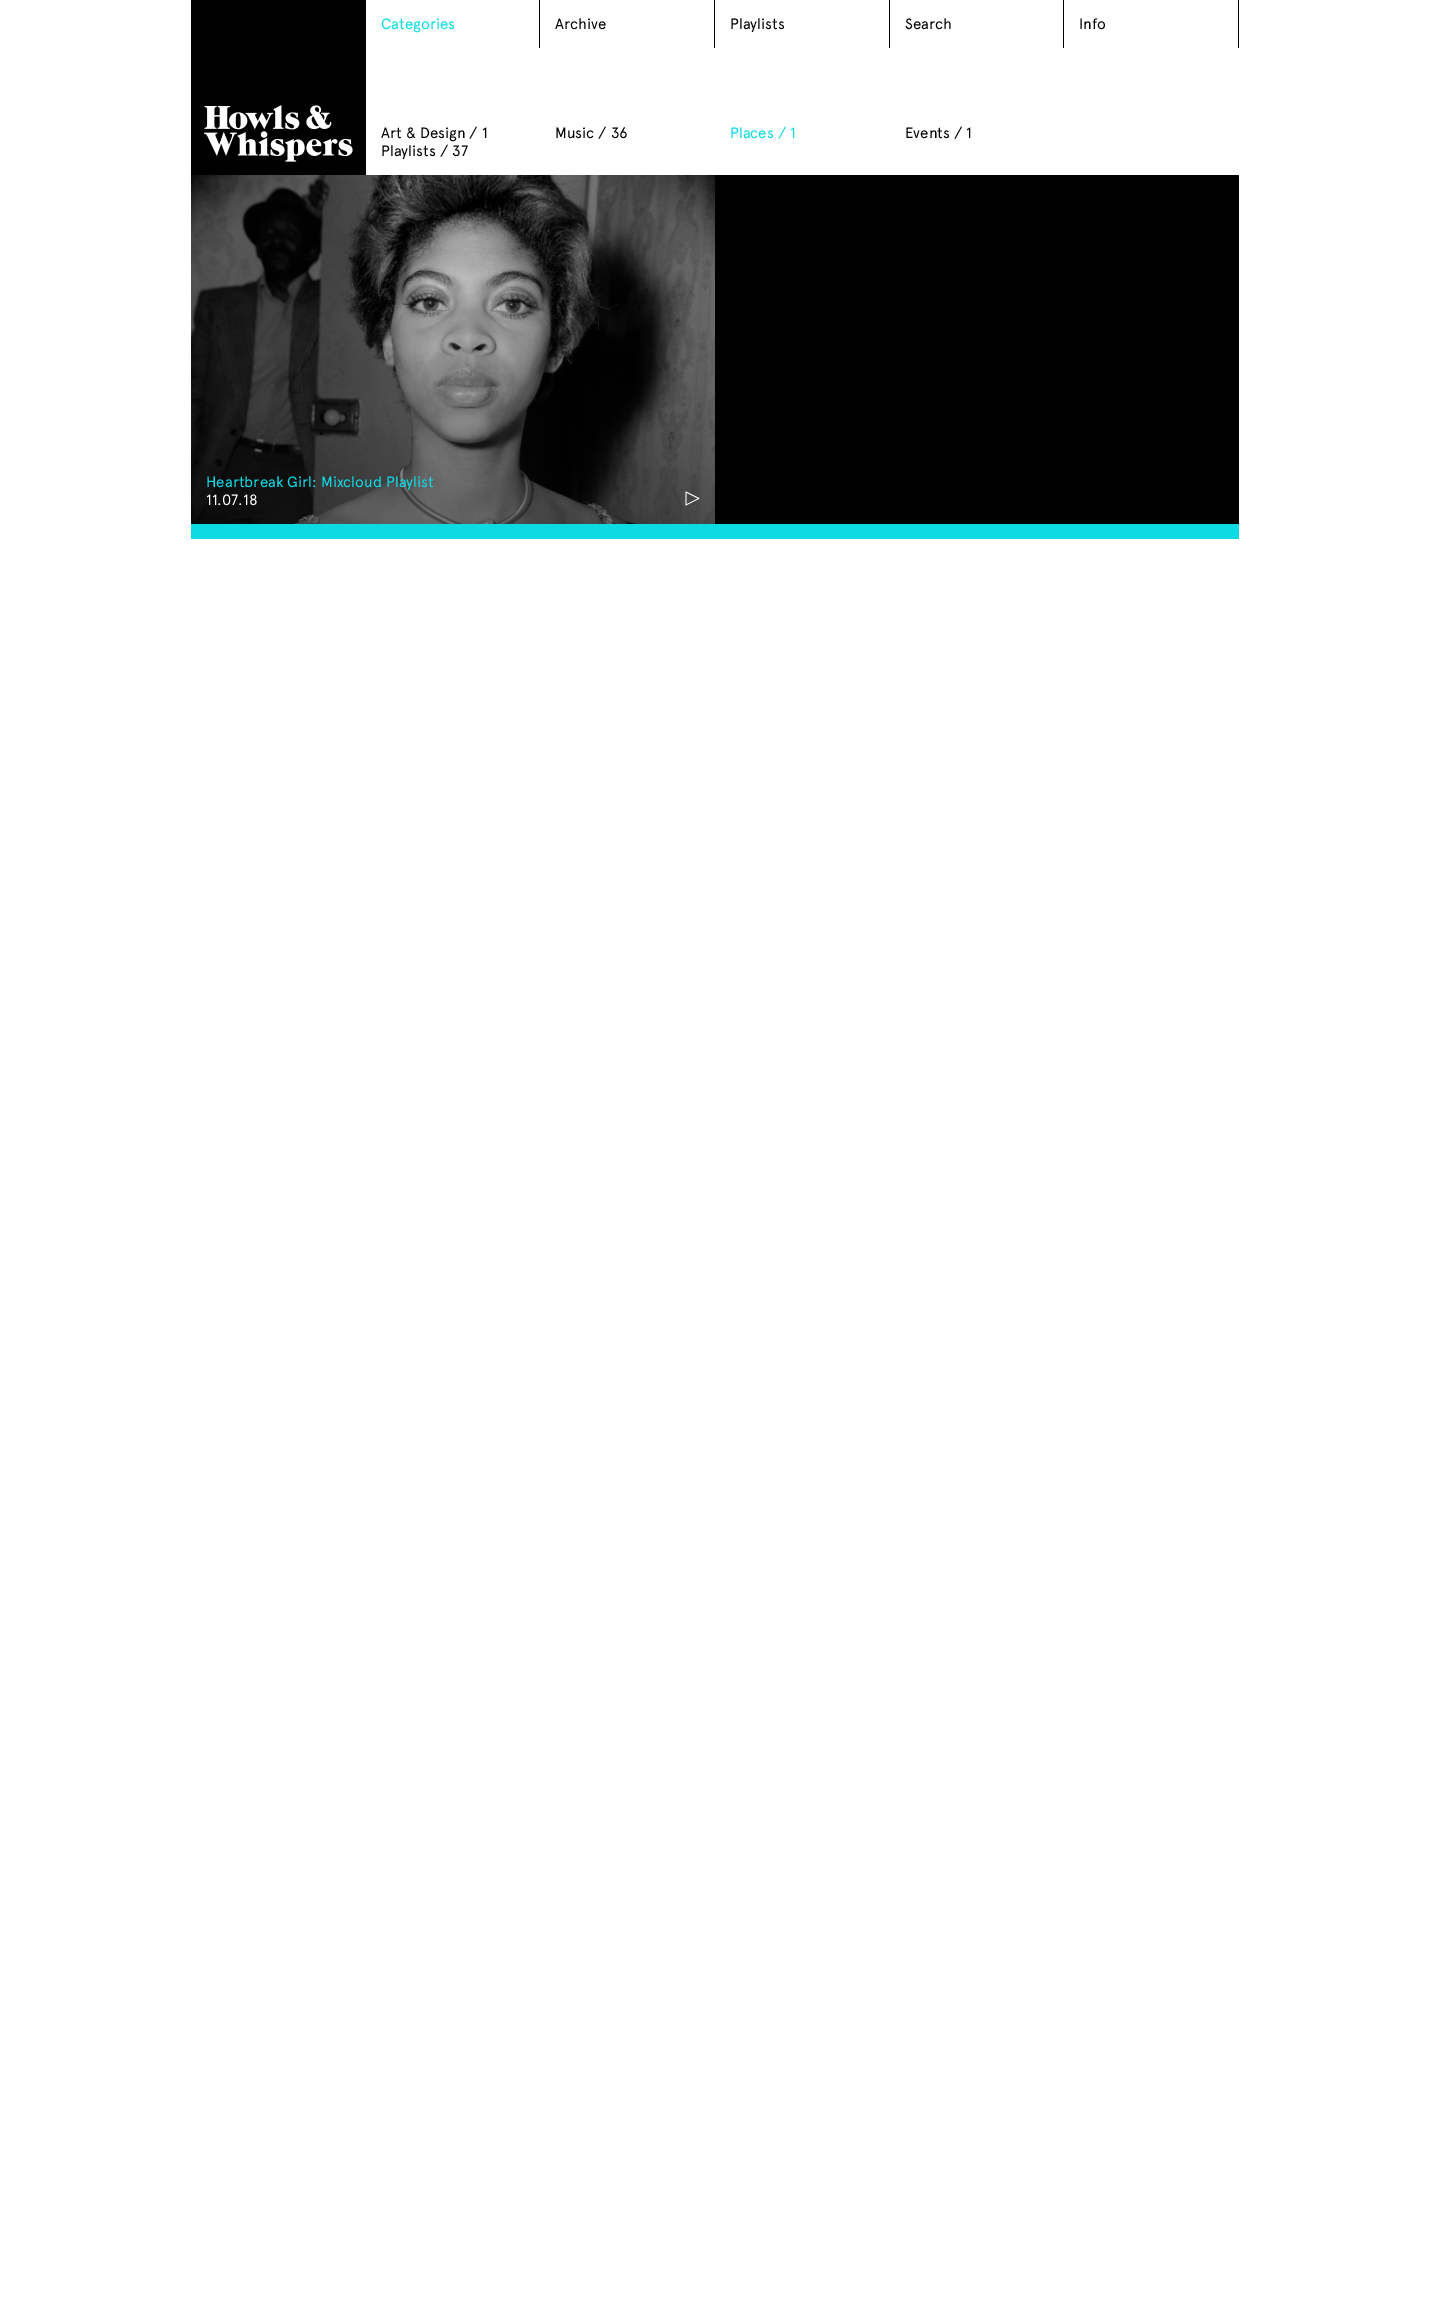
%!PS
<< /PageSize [1430 2322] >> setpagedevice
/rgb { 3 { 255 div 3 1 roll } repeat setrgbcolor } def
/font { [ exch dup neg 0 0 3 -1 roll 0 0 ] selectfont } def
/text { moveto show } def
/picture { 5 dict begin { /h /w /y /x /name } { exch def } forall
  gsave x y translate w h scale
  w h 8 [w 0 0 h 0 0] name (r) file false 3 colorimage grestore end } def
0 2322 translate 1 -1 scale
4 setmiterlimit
255 255 255 rgb
0 0 1430 2322 rectfill
12 219 228 rgb
191 524 1048 15 rectfill
(img_01.rgb) 191 0 175 175 picture
0 0 0 rgb
539 0 1 48 rectfill
714 0 1 48 rectfill
889 0 1 48 rectfill
1063 0 1 48 rectfill
1238 0 1 48 rectfill
715 175 524 349 rectfill
(img_02.rgb) 191 175 524 349 picture
/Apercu-Regular 15 font
12 219 228 rgb
(Categories) 381 29 text
0 0 0 rgb
(Archive) 555 29 text
(Playlists) 730 29 text
(Search) 905 29 text
(Info) 1079 29 text
(Art & Design / 1) 381 138 text
(Music / 36) 555 138 text
12 219 228 rgb
(Places / 1) 730 138 text
0 0 0 rgb
(Events / 1) 905 138 text
(Playlists / 37) 381 156 text
12 219 228 rgb
(Heartbreak Girl: Mixcloud Playlist) 206 487 text
255 255 255 rgb
(11.07.18) 206 505 text
/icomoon-Regular 15 font
(˃) 685 505 text
showpage
